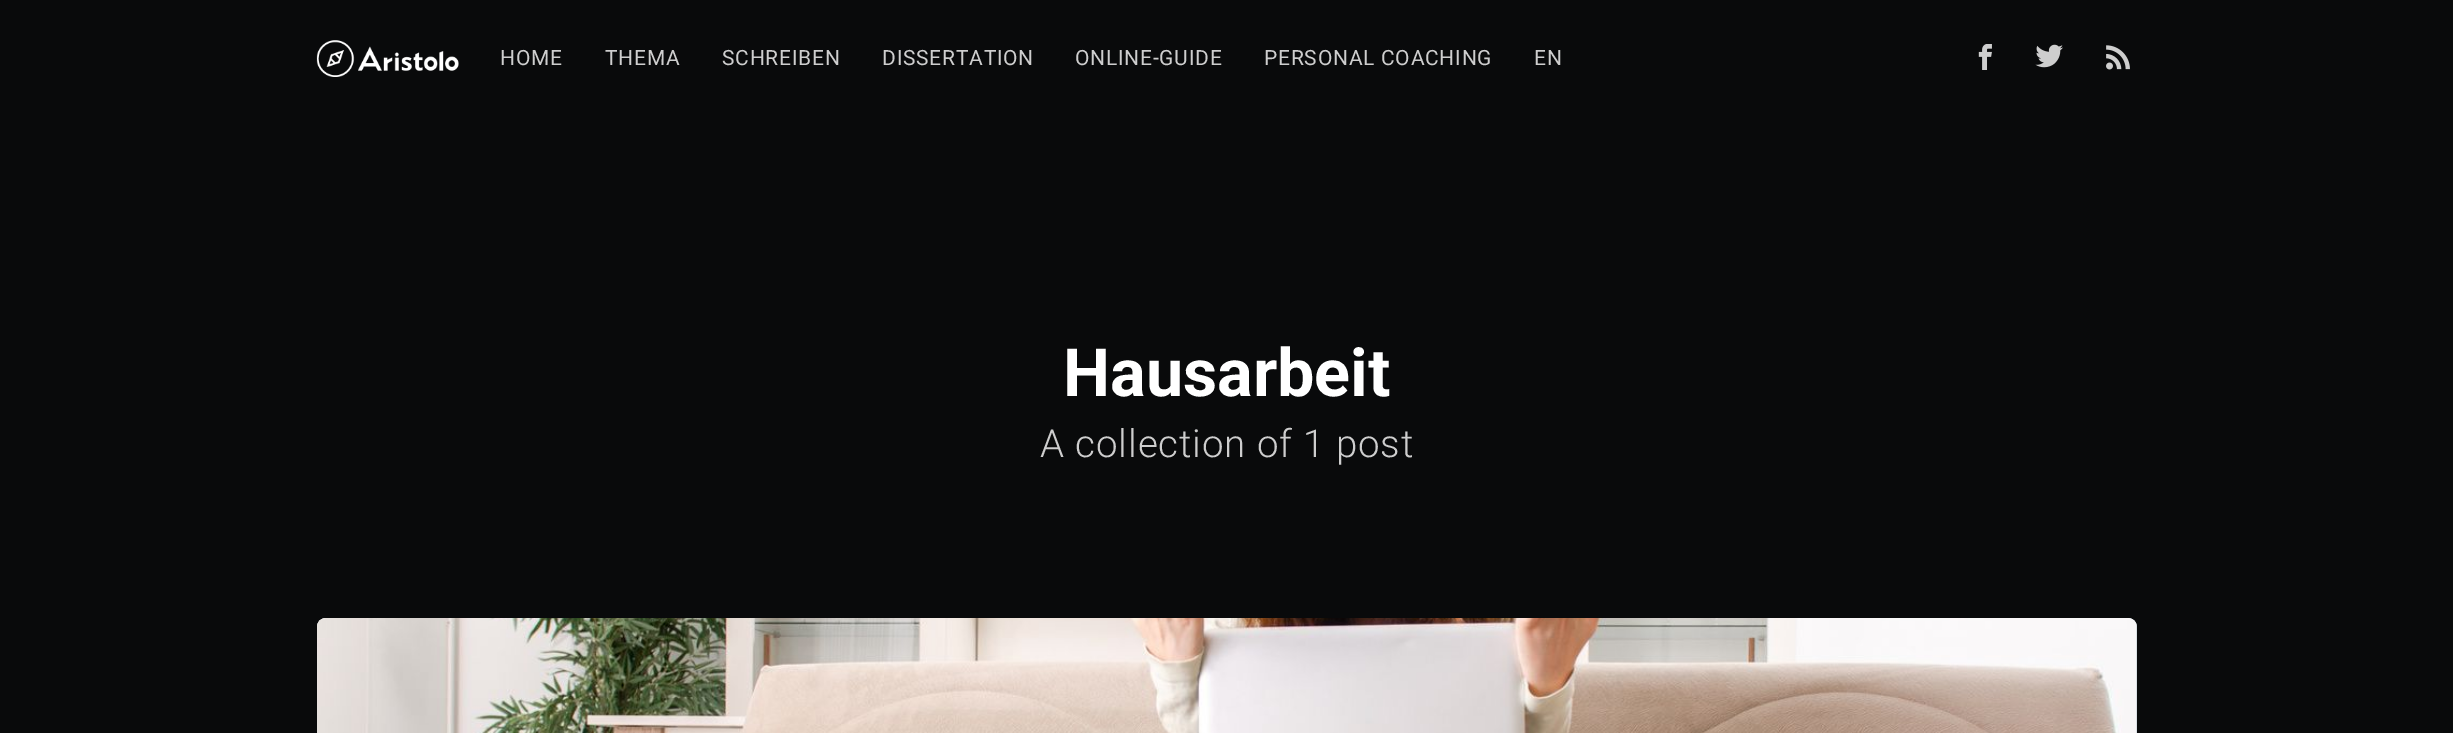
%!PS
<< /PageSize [2453 733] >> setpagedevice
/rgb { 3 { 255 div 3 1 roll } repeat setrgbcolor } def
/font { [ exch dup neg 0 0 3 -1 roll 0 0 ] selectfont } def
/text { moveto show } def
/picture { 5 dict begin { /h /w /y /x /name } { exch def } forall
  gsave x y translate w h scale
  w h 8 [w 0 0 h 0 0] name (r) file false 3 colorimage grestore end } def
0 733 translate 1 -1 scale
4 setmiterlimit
9 10 11 rgb
0 0 2453 733 rectfill
(img_01.rgb) 316 40 143 37 picture
(img_02.rgb) 1978 44 14 26 picture
(img_03.rgb) 2035 44 28 24 picture
(img_04.rgb) 2106 45 24 25 picture
197 210 217 rgb
326 618 moveto 1802 0 rlineto 5 0 9 4 9 9 rcurveto 0 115 rlineto -1820 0 rlineto 0 -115 rlineto 0 -5 4 -9 9 -9 rcurveto closepath fill
(img_05.rgb) 317 618 1820 115 picture
/Roboto-Regular 21 font
206 206 206 rgb
500 65 moveto 0.75 0 (HOME) ashow
605 65 moveto 0.75 0 (THEMA) ashow
722 65 moveto 0.75 0 (SCHREIBEN) ashow
882 65 moveto 0.75 0 (DISSERTATION) ashow
1075 65 moveto 0.75 0 (ONLINE-GUIDE) ashow
1264 65 moveto 0.75 0 (PERSONAL COACHING) ashow
1534 65 moveto 0.75 0 (EN) ashow
/Roboto-Bold 66.5 font
255 255 255 rgb
(Hausarbeit) 1063 396 text
/Roboto-Light 38.5 font
206 206 206 rgb
1040 457 moveto 0.9 0 (A collection of 1 post) ashow
showpage
